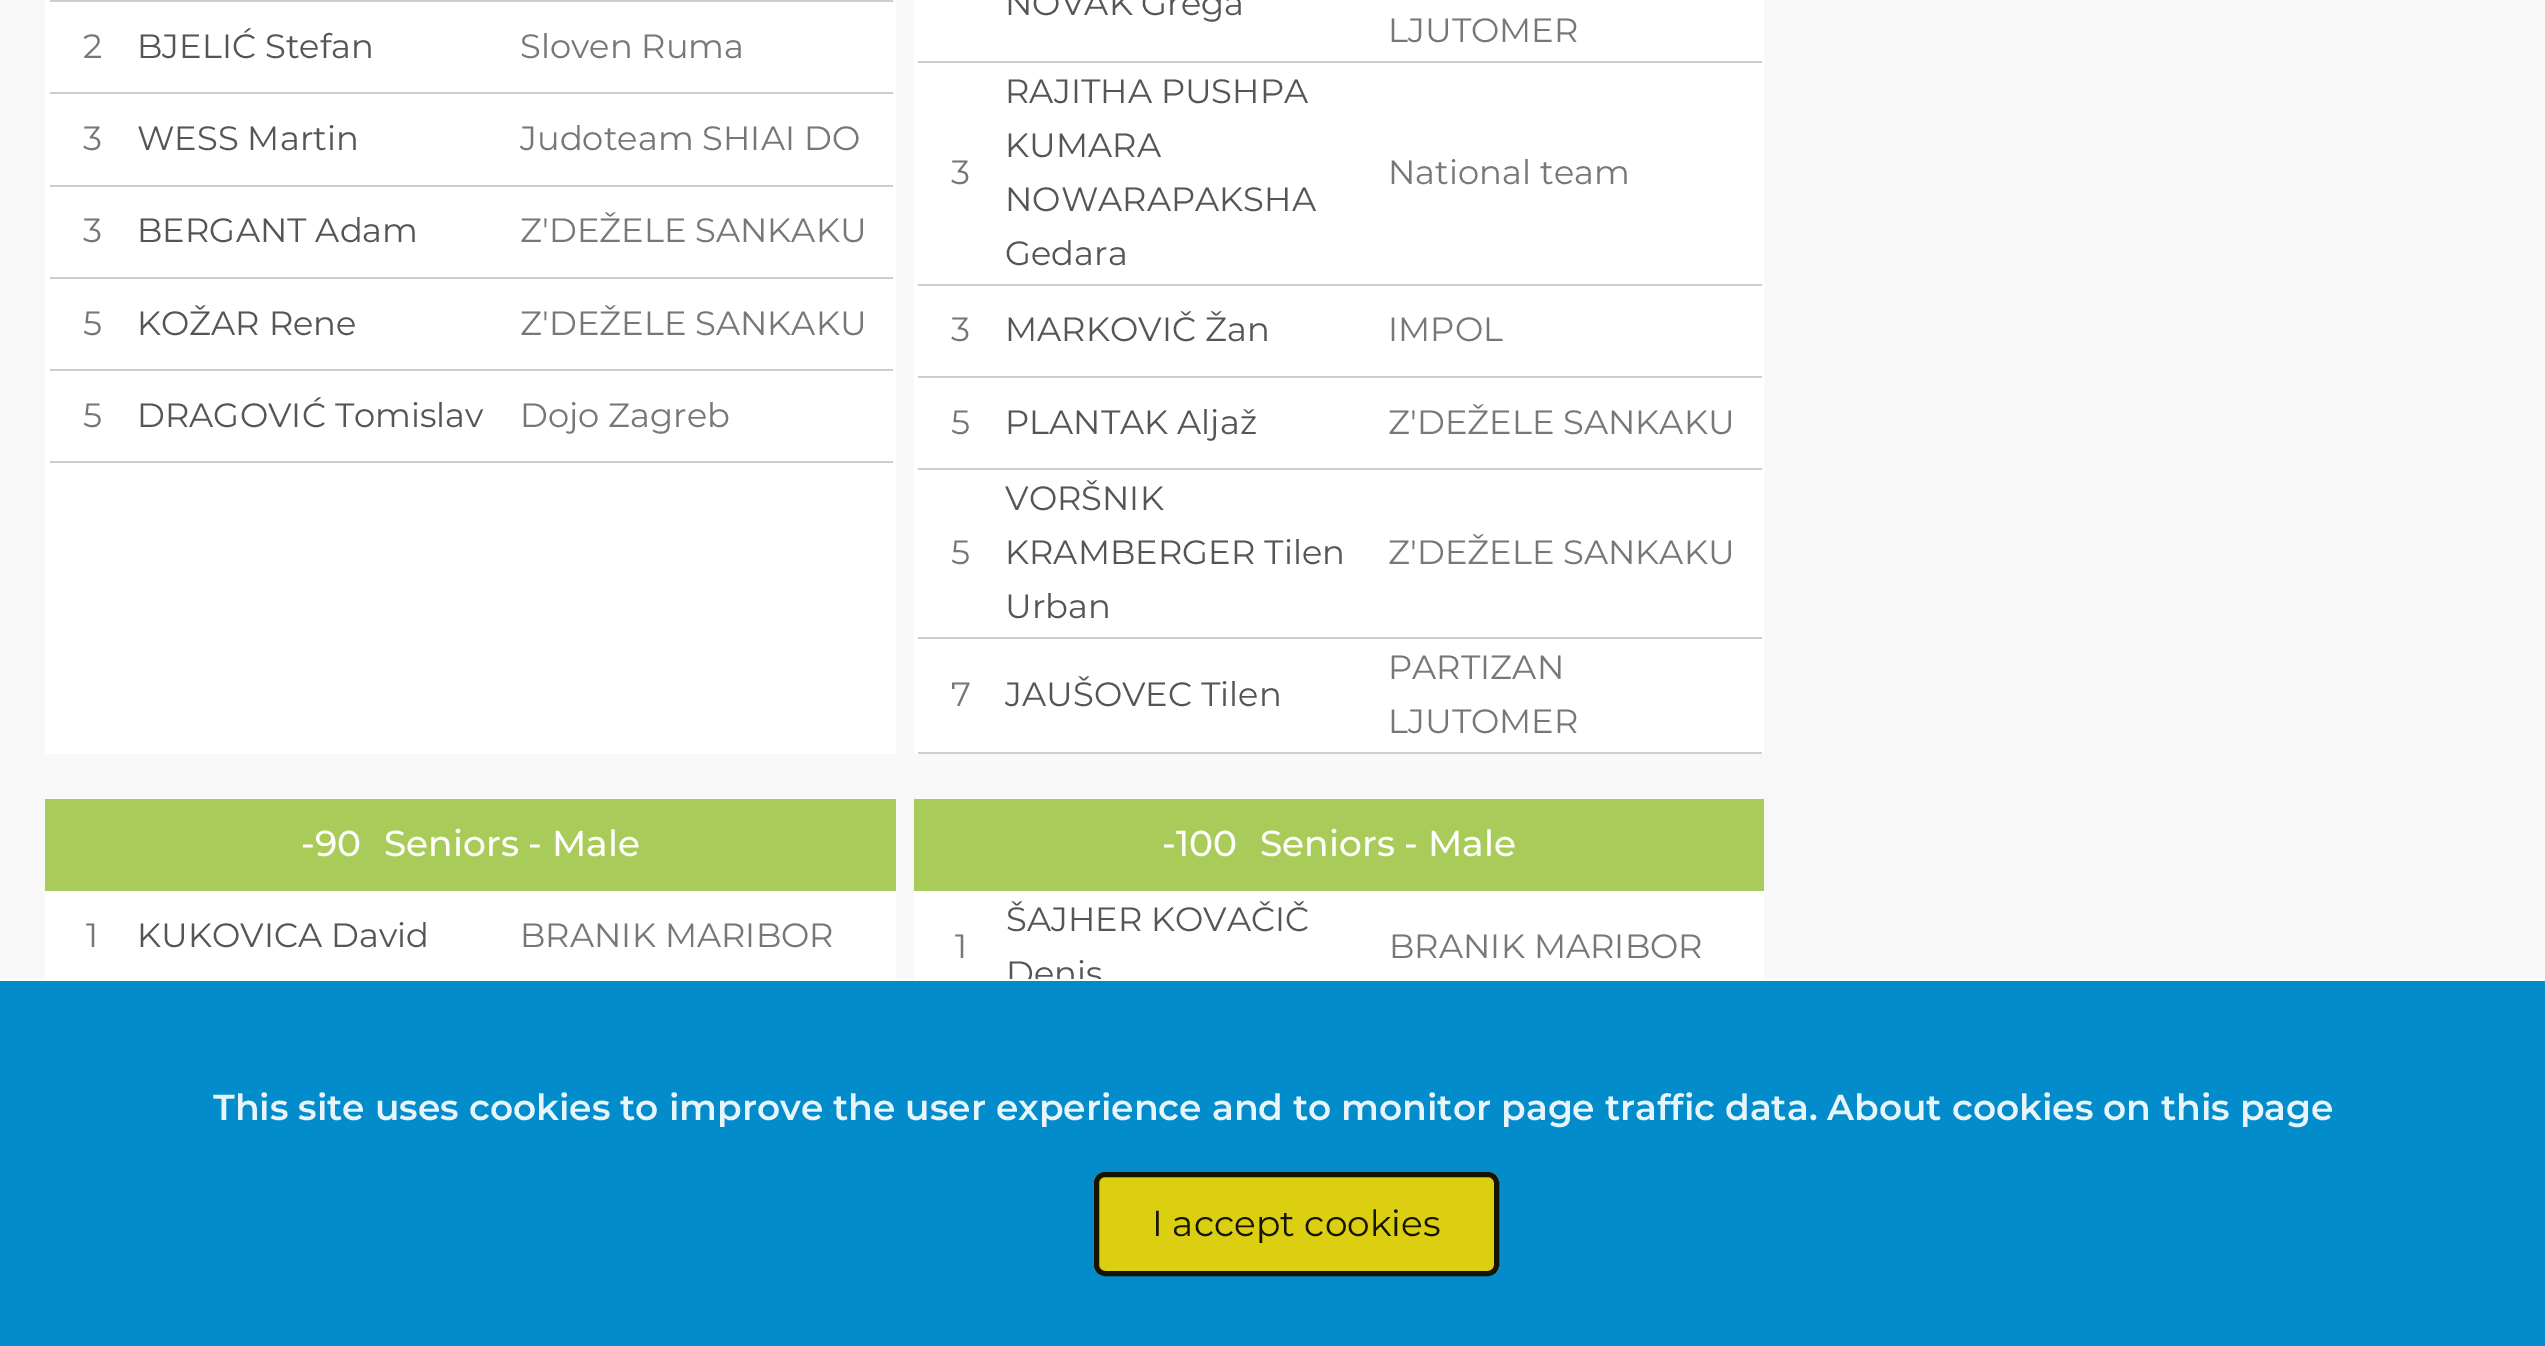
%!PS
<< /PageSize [2545 1346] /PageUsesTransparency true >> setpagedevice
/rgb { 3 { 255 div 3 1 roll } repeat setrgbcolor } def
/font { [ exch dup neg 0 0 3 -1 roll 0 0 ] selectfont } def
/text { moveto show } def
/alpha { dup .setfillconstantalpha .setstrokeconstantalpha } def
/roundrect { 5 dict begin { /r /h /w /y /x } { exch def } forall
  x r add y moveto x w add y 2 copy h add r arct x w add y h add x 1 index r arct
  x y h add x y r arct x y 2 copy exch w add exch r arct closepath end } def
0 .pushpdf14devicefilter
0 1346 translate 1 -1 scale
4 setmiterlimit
248 248 248 rgb
0 0 2545 1346 rectfill
255 255 255 rgb
45 0 851 754 rectfill
206 206 206 rgb
50 0 843 2 rectfill
50 92 843 2 rectfill
50 185 843 2 rectfill
50 277 843 2 rectfill
50 369 843 2 rectfill
50 461 843 2 rectfill
255 255 255 rgb
914 0 850 754 rectfill
206 206 206 rgb
918 61 844 2 rectfill
918 284 844 2 rectfill
918 376 844 2 rectfill
918 468 844 2 rectfill
918 637 844 2 rectfill
918 752 844 2 rectfill
255 255 255 rgb
45 891 851 455 rectfill
168 203 89 rgb
45 799 851 92 rectfill
206 206 206 rgb
50 981 843 2 rectfill
50 1073 843 2 rectfill
50 1166 843 2 rectfill
50 1258 843 2 rectfill
255 255 255 rgb
914 891 850 455 rectfill
168 203 89 rgb
914 799 850 92 rectfill
206 206 206 rgb
918 1004 842 2 rectfill
/Montserrat-Regular 33.75 font
119 119 119 rgb
(2) 83 58 text
85 85 85 rgb
(BJELIĆ Stefan) 137 58 text
119 119 119 rgb
(Sloven Ruma) 520 58 text
(3) 83 150 text
85 85 85 rgb
(WESS Martin) 137 150 text
119 119 119 rgb
(Judoteam SHIAI DO) 520 150 text
(3) 83 242 text
85 85 85 rgb
(BERGANT Adam) 137 242 text
119 119 119 rgb
(Z'DEŽELE SANKAKU) 520 242 text
(5) 83 335 text
85 85 85 rgb
(KOŽAR Rene) 137 335 text
119 119 119 rgb
(Z'DEŽELE SANKAKU) 520 335 text
(5) 83 427 text
85 85 85 rgb
(DRAGOVIĆ Tomislav) 137 427 text
119 119 119 rgb
(Dojo Zagreb) 520 427 text
85 85 85 rgb
(NOVAK Grega) 1005 15 text
119 119 119 rgb
(LJUTOMER) 1388 42 text
(3) 951 184 text
85 85 85 rgb
(RAJITHA PUSHPA) 1005 103 text
(KUMARA) 1005 157 text
(NOWARAPAKSHA) 1005 211 text
(Gedara) 1005 265 text
119 119 119 rgb
(National team) 1388 184 text
(3) 951 341 text
85 85 85 rgb
(MARKOVIČ Žan) 1005 341 text
119 119 119 rgb
(IMPOL) 1388 341 text
(5) 951 434 text
85 85 85 rgb
(PLANTAK Aljaž) 1005 434 text
119 119 119 rgb
(Z'DEŽELE SANKAKU) 1388 434 text
(5) 951 564 text
85 85 85 rgb
(VORŠNIK) 1005 510 text
(KRAMBERGER Tilen) 1005 564 text
(Urban) 1005 618 text
119 119 119 rgb
(Z'DEŽELE SANKAKU) 1388 564 text
(7) 951 706 text
85 85 85 rgb
(JAUŠOVEC Tilen) 1005 706 text
119 119 119 rgb
(PARTIZAN) 1388 679 text
(LJUTOMER) 1388 733 text
/Montserrat-Medium 36 font
255 255 255 rgb
(-90) 301 856 text
(Seniors - Male) 384 856 text
/Montserrat-Regular 33.75 font
119 119 119 rgb
(1) 86 947 text
85 85 85 rgb
(KUKOVICA David) 137 947 text
119 119 119 rgb
(BRANIK MARIBOR) 520 947 text
/Montserrat-Medium 36 font
255 255 255 rgb
(-100) 1162 856 text
(Seniors - Male) 1260 856 text
/Montserrat-Regular 33.75 font
119 119 119 rgb
(1) 955 958 text
85 85 85 rgb
(ŠAJHER KOVAČIČ) 1006 931 text
(Denis) 1006 985 text
119 119 119 rgb
(BRANIK MARIBOR) 1389 958 text
0.9 alpha
0 139 203 rgb
0 981 2545 365 rectfill
1 alpha
242 218 26 rgb
1096.5 1174.5 400 99 8.5 roundrect gsave fill grestore
26 26 26 rgb
5 setlinewidth
stroke
0.9 alpha
0 139 203 rgb
0 981 2545 365 rectfill
1 alpha
253 254 255 rgb
0 979 2545 2 rectfill
/Montserrat-SemiBold 36 font
231 244 250 rgb
(This site uses cookies to improve the user experience and to monitor page traffic data.) 213 1120 text
(About cookies on this page) 1827 1120 text
0.9 alpha
241 214 0 rgb
1094 1172 405 104 11 roundrect fill
0 0 0 rgb
1096.5 1174.5 400 99 8.5 roundrect stroke
/Montserrat-Regular 36 font
1 alpha
22 21 2 rgb
(I accept cookies) 1152 1236 text
.poppdf14devicefilter showpage
